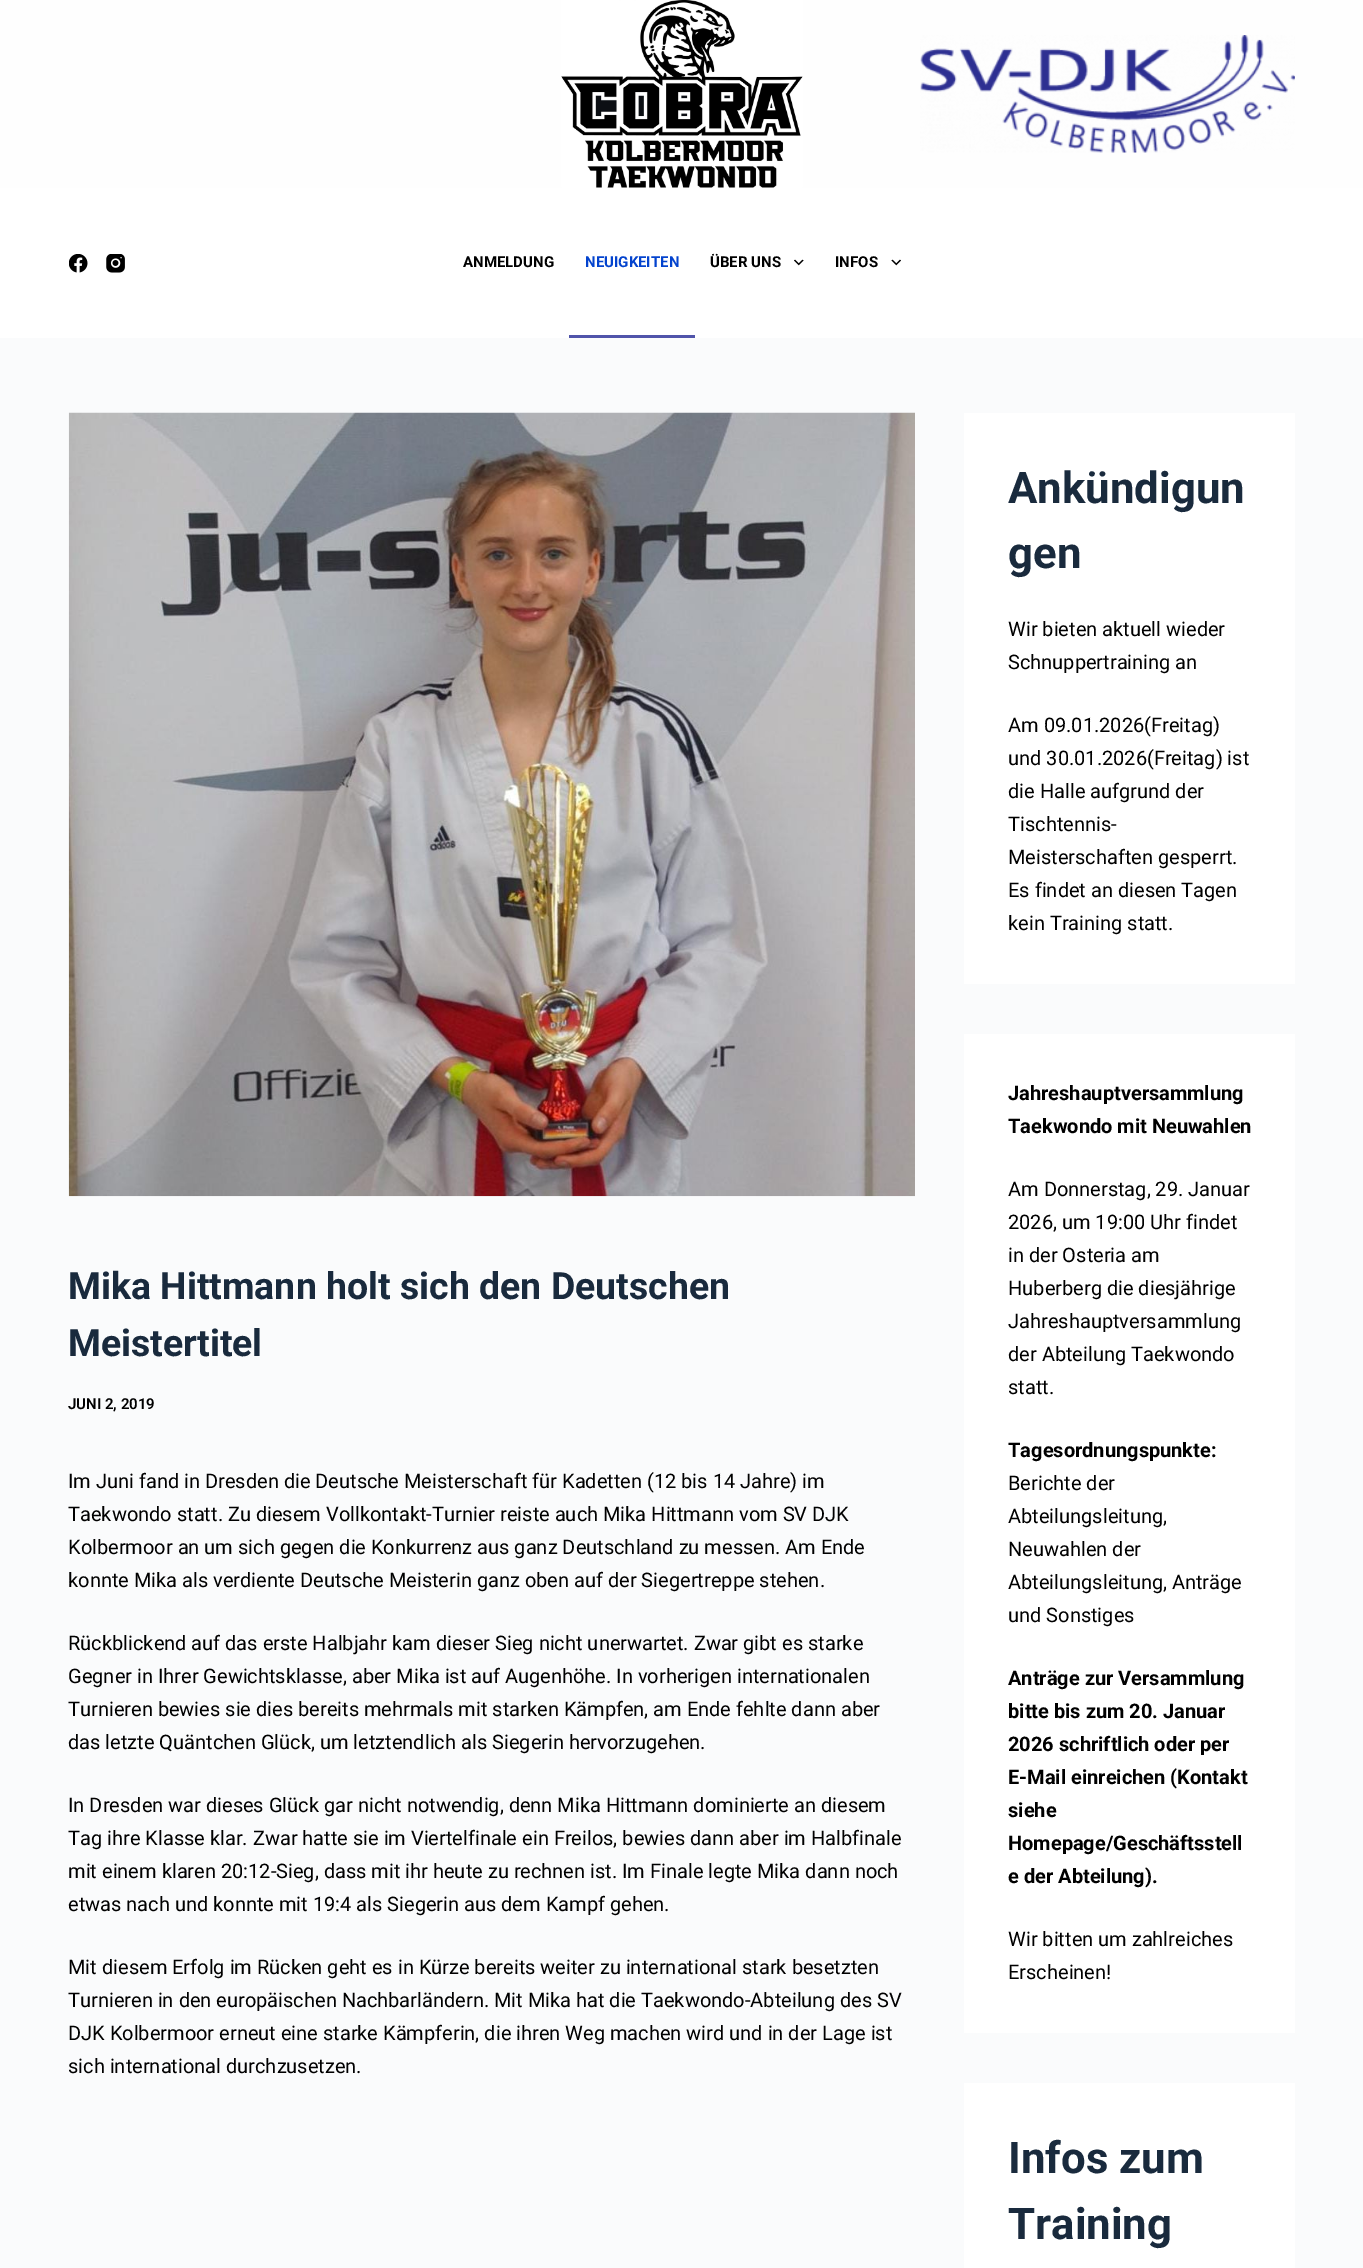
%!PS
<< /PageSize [1363 2268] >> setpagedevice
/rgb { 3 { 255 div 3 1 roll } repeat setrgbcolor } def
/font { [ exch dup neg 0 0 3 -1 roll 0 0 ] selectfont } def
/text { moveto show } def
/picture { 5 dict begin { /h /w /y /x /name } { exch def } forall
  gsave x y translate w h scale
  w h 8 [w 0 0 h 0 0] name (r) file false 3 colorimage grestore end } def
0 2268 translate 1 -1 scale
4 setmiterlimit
250 251 252 rgb
0 0 1363 2268 rectfill
254 254 254 rgb
0 0 1363 188 rectfill
(img_01.rgb) 561 0 242 188 picture
(img_02.rgb) 920 35 375 118 picture
255 255 255 rgb
0 188 1363 150 rectfill
(img_03.rgb) 69 254 19 19 picture
(img_04.rgb) 106 254 19 19 picture
80 84 170 rgb
569 335 126 3 rectfill
(img_05.rgb) 794 259 10 7 picture
(img_06.rgb) 891 259 10 7 picture
(img_07.rgb) 68 412 847 785 picture
255 255 255 rgb
964 413 331 571 rectfill
964 1034 331 999 rectfill
964 2083 331 185 rectfill
/Roboto-Bold 15 font
0 0 0 rgb
(ANMELDUNG) 463 267 text
3 67 206 rgb
(NEUIGKEITEN) 585 267 text
0 0 0 rgb
(ÜBER UNS) 710 267 text
(INFOS) 835 267 text
/Roboto-Bold 37.5 font
25 42 61 rgb
(Mika Hittmann holt sich den Deutschen) 68 1299 text
(Meistertitel) 68 1356 text
/Roboto-SemiBold 15 font
0 0 0 rgb
(JUNI 2, 2019) 68 1409 text
/Roboto-Regular 20 font
(Im Juni fand in Dresden die Deutsche Meisterschaft für Kadetten \(12 bis 14 Jahre\) im) 68 1488 text
(Taekwondo statt. Zu diesem Vollkontakt-Turnier reiste auch Mika Hittmann vom SV DJK) 68 1521 text
(Kolbermoor an um sich gegen die Konkurrenz aus ganz Deutschland zu messen. Am Ende) 68 1554 text
(konnte Mika als verdiente Deutsche Meisterin ganz oben auf der Siegertreppe stehen.) 68 1587 text
(Rückblickend auf das erste Halbjahr kam dieser Sieg nicht unerwartet. Zwar gibt es starke) 68 1650 text
(Gegner in Ihrer Gewichtsklasse, aber Mika ist auf Augenhöhe. In vorherigen internationalen) 68 1683 text
(Turnieren bewies sie dies bereits mehrmals mit starken Kämpfen, am Ende fehlte dann aber) 68 1716 text
(das letzte Quäntchen Glück, um letztendlich als Siegerin hervorzugehen.) 68 1749 text
(In Dresden war dieses Glück gar nicht notwendig, denn Mika Hittmann dominierte an diesem) 68 1812 text
(Tag ihre Klasse klar. Zwar hatte sie im Viertelfinale ein Freilos, bewies dann aber im Halbfinale) 68 1845 text
(mit einem klaren 20:12-Sieg, dass mit ihr heute zu rechnen ist. Im Finale legte Mika dann noch) 68 1878 text
(etwas nach und konnte mit 19:4 als Siegerin aus dem Kampf gehen.) 68 1911 text
(Mit diesem Erfolg im Rücken geht es in Kürze bereits weiter zu international stark besetzten) 68 1974 text
(Turnieren in den europäischen Nachbarländern. Mit Mika hat die Taekwondo-Abteilung des SV) 68 2007 text
(DJK Kolbermoor erneut eine starke Kämpferin, die ihren Weg machen wird und in der Lage ist) 68 2040 text
(sich international durchzusetzen.) 68 2073 text
/Roboto-Bold 43.75 font
25 42 61 rgb
(Ankündigun) 1008 503 text
(gen) 1008 568 text
/Roboto-Regular 20 font
0 0 0 rgb
(Wir bieten aktuell wieder) 1008 636 text
(Schnuppertraining an) 1008 669 text
(Am 09.01.2026\(Freitag\)) 1008 732 text
(und 30.01.2026\(Freitag\) ist) 1008 765 text
(die Halle aufgrund der) 1008 798 text
(Tischtennis-) 1008 831 text
(Meisterschaften gesperrt.) 1008 864 text
(Es findet an diesen Tagen) 1008 897 text
(kein Training statt.) 1008 930 text
/Roboto-Bold 20 font
(Jahreshauptversammlung) 1008 1100 text
(Taekwondo mit Neuwahlen) 1008 1133 text
/Roboto-Regular 20 font
(Am Donnerstag, 29. Januar) 1008 1196 text
(2026, um 19:00 Uhr findet) 1008 1229 text
(in der Osteria am) 1008 1262 text
(Huberberg die diesjährige) 1008 1295 text
(Jahreshauptversammlung) 1008 1328 text
(der Abteilung Taekwondo) 1008 1361 text
(statt.) 1008 1394 text
/Roboto-Bold 20 font
(Tagesordnungspunkte:) 1008 1457 text
/Roboto-Regular 20 font
(Berichte der) 1008 1490 text
(Abteilungsleitung,) 1008 1523 text
(Neuwahlen der) 1008 1556 text
(Abteilungsleitung, Anträge) 1008 1589 text
(und Sonstiges) 1008 1622 text
/Roboto-Bold 20 font
(Anträge zur Versammlung) 1008 1685 text
(bitte bis zum 20. Januar) 1008 1718 text
(2026 schriftlich oder per) 1008 1751 text
(E-Mail einreichen \(Kontakt) 1008 1784 text
(siehe) 1008 1817 text
(Homepage/Geschäftsstell) 1008 1850 text
(e der Abteilung\).) 1008 1883 text
/Roboto-Regular 20 font
(Wir bitten um zahlreiches) 1008 1946 text
(Erscheinen!) 1008 1979 text
/Roboto-Bold 43.75 font
25 42 61 rgb
(Infos zum) 1008 2173 text
(Training) 1008 2239 text
showpage
